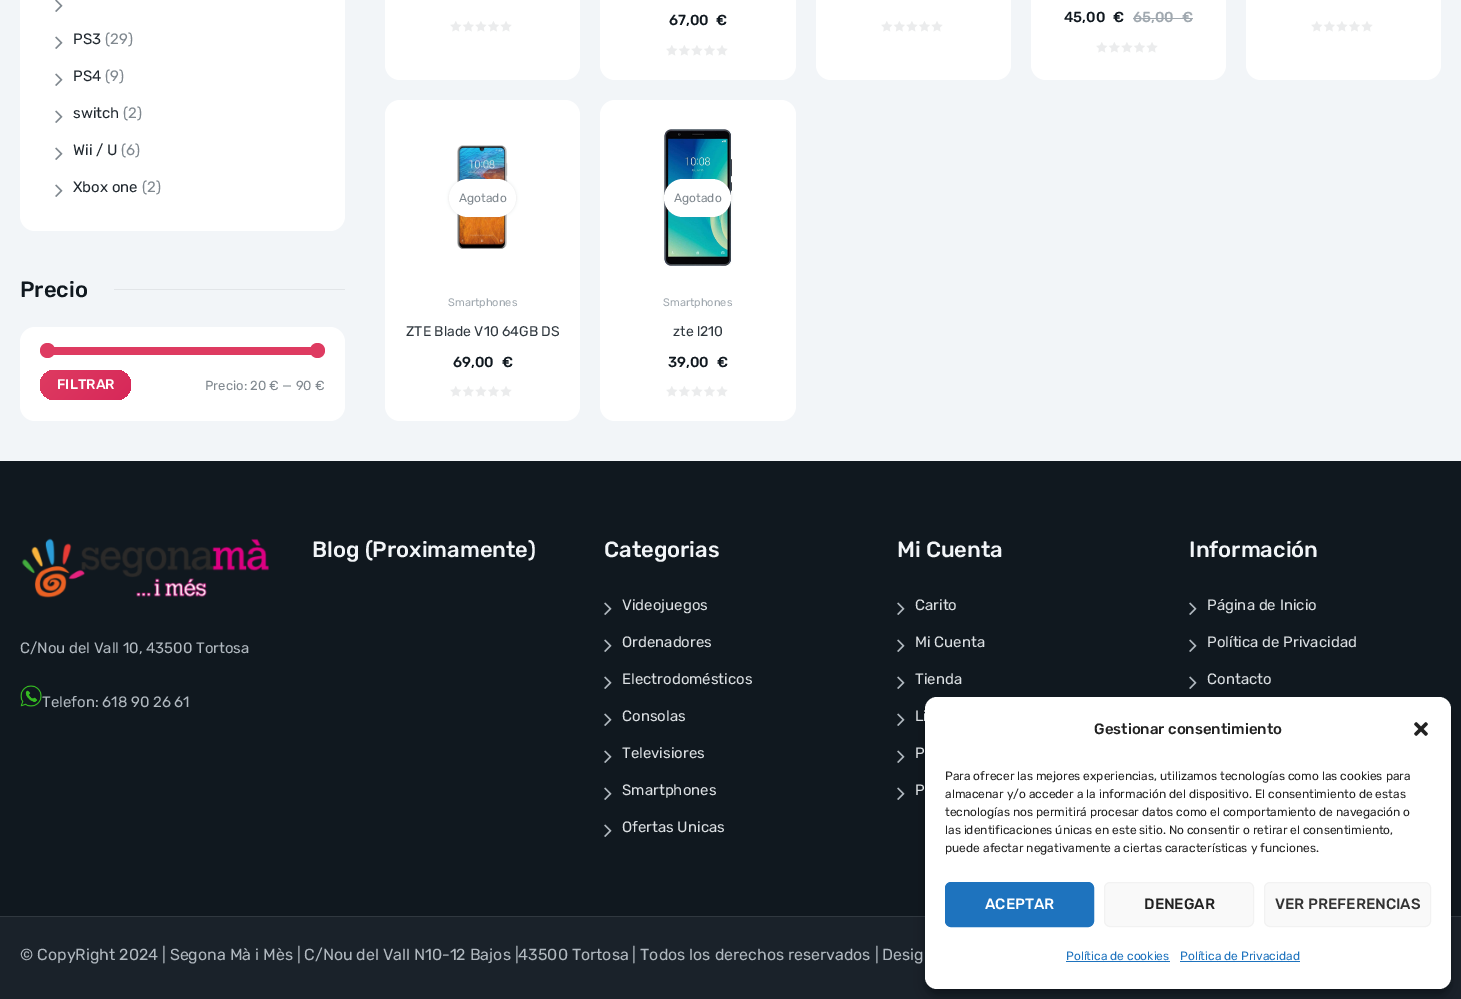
%!PS
<< /PageSize [1461 999] /PageUsesTransparency true >> setpagedevice
/rgb { 3 { 255 div 3 1 roll } repeat setrgbcolor } def
/font { [ exch dup neg 0 0 3 -1 roll 0 0 ] selectfont } def
/text { moveto show } def
/alpha { dup .setfillconstantalpha .setstrokeconstantalpha } def
/circle { newpath 0 360 arc closepath } def
/roundrect { 5 dict begin { /r /h /w /y /x } { exch def } forall
  x r add y moveto x w add y 2 copy h add r arct x w add y h add x 1 index r arct
  x y h add x y r arct x y 2 copy exch w add exch r arct closepath end } def
/shadow { 12 dict begin { /a /b /q /h /w /y /x } { exch def } forall gsave /was 0 def
  9 -2 -9 { dup b mul 4 div /e exch def 1 sub .425 mul 2.718 exch exp 1 add a .99 .min exch div /now exch def
    1 1 now sub 1 was sub div sub alpha /was now def
    w h .min e 2 mul add 0 gt { x e sub y e sub w e 2 mul add h e 2 mul add
      q e add b .6 mul add w h .min 2 div e add .min 0 .max roundrect fill } if } for grestore end } def
/picture { 5 dict begin { /h /w /y /x /name } { exch def } forall
  gsave x y translate w h scale
  w h 8 [w 0 0 h 0 0] name (r) file false 3 colorimage grestore end } def
0 .pushpdf14devicefilter
0 999 translate 1 -1 scale
4 setmiterlimit
242 245 248 rgb
0 0 1461 999 rectfill
255 255 255 rgb
20 -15 325 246 15 roundrect fill
(img_01.rgb) 55 0 8 12 picture
(img_02.rgb) 55 36 8 13 picture
(img_02.rgb) 55 73 8 13 picture
(img_02.rgb) 55 110 8 13 picture
(img_02.rgb) 55 147 8 13 picture
(img_02.rgb) 55 184 8 13 picture
226 229 232 rgb
114 289 231 1 rectfill
255 255 255 rgb
20 327 325 94 15 roundrect fill
222 59 97 rgb
48 347 270 8 rectfill
47.5 350.5 7.5 circle fill
317.5 350.5 7.5 circle fill
gsave 40 370 91 30 15 roundrect clip newpath
<< /ShadingType 2 /ColorSpace /DeviceRGB /Coords [55 355 116 415] /Extend [true true] /Function << /FunctionType 2 /Domain [0 1] /C0 [0.871 0.231 0.38] /C1 [0.843 0.157 0.349] /N 1 >> >> shfill grestore
255 255 255 rgb
385 -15 195 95 15 roundrect fill
(img_03.rgb) 450 21 62 11 picture
600 -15 196 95 15 roundrect fill
(img_03.rgb) 666 45 62 11 picture
816 -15 195 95 15 roundrect fill
(img_03.rgb) 881 21 62 11 picture
1031 -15 195 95 15 roundrect fill
160 168 175 rgb
1133 18 60 1 rectfill
(img_03.rgb) 1096 42 62 11 picture
255 255 255 rgb
1246 -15 195 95 15 roundrect fill
(img_03.rgb) 1311 21 62 11 picture
385 100 195 321 15 roundrect fill
(img_04.rgb) 457 145 51 104 picture
118 128 138 rgb
449 179 67 38 19 1.5 0.2 shadow
255 255 255 rgb
449 179 67 38 19 roundrect fill
(img_03.rgb) 450 386 62 11 picture
600 100 196 321 15 roundrect fill
(img_05.rgb) 663 129 70 137 picture
118 128 138 rgb
664 179 67 38 19 1.5 0.2 shadow
255 255 255 rgb
664 179 67 38 19 roundrect fill
(img_03.rgb) 666 386 62 11 picture
16 24 31 rgb
0 461 1461 455 rectfill
(img_06.rgb) 21 538 248 60 picture
(img_07.rgb) 20 685 22 22 picture
(img_08.rgb) 604 602 8 13 picture
(img_08.rgb) 604 639 8 13 picture
(img_08.rgb) 604 676 8 13 picture
(img_08.rgb) 604 713 8 13 picture
(img_08.rgb) 604 750 8 13 picture
(img_08.rgb) 604 787 8 13 picture
(img_08.rgb) 604 824 8 13 picture
(img_08.rgb) 897 602 8 13 picture
(img_08.rgb) 897 639 8 13 picture
(img_08.rgb) 897 676 8 13 picture
(img_08.rgb) 897 713 8 13 picture
(img_08.rgb) 897 750 8 13 picture
(img_08.rgb) 897 787 8 13 picture
(img_08.rgb) 1189 602 8 13 picture
(img_08.rgb) 1189 639 8 13 picture
(img_08.rgb) 1189 676 8 13 picture
26 34 42 rgb
0 917 1461 82 rectfill
48 56 63 rgb
0 916 1461 1 rectfill
0 0 0 rgb
925 703 526 292 12 3 0.23 shadow
925 707 526 292 12 10 0.19 shadow
/Rubik-Regular 15 font
32 40 47 rgb
(PS3) 73 44 text
128 136 143 rgb
(\(29\)) 105 44 text
32 40 47 rgb
(PS4) 73 81 text
128 136 143 rgb
(\(9\)) 105 81 text
32 40 47 rgb
(switch) 73 118 text
128 136 143 rgb
(\(2\)) 123 118 text
32 40 47 rgb
(Wii / U) 73 155 text
128 136 143 rgb
(\(6\)) 121 155 text
32 40 47 rgb
(Xbox one) 73 192 text
128 136 143 rgb
(\(2\)) 142 192 text
/Rubik-Medium 22 font
16 24 31 rgb
(Precio) 20 297 text
/Rubik-Medium 14 font
255 255 255 rgb
(FILTRAR) 57 389 text
/Rubik-Regular 13.1 font
128 136 143 rgb
(Precio: 20 € — 90 €) 205 390 text
/Rubik-Medium 14.5 font
16 24 31 rgb
(67,00) 669 25 text
(€) 716 25 text
(45,00) 1064 22 text
(€) 1113 22 text
160 168 175 rgb
(65,00) 1133 22 text
(€) 1182 22 text
/Rubik-Regular 12 font
128 136 143 rgb
(Agotado) 459 202 text
/Rubik-Regular 11 font
160 168 175 rgb
(Smartphones) 448 306 text
/Rubik-Regular 14 font
48 56 63 rgb
(ZTE Blade V10 64GB DS) 406 336 text
/Rubik-Medium 14.5 font
16 24 31 rgb
(69,00) 453 367 text
(€) 502 367 text
/Rubik-Regular 12 font
128 136 143 rgb
(Agotado) 674 202 text
/Rubik-Regular 11 font
160 168 175 rgb
(Smartphones) 663 306 text
/Rubik-Regular 14 font
48 56 63 rgb
(zte l210) 673 336 text
/Rubik-Medium 14.5 font
16 24 31 rgb
(39,00) 668 367 text
(€) 717 367 text
/Rubik-Regular 15 font
176 184 191 rgb
(C/Nou del Vall 10, 43500 Tortosa) 20 653 text
(Telefon: 618 90 26 61) 42 707 text
/Rubik-Medium 22 font
242 245 248 rgb
(Blog \(Proximamente\)) 312 557 text
(Categorias) 604 557 text
/Rubik-Regular 15 font
219 223 226 rgb
(Videojuegos) 622 610 text
(Ordenadores) 622 647 text
(Electrodomésticos) 622 684 text
(Consolas) 622 721 text
(Televisiores) 622 758 text
(Smartphones) 622 795 text
(Ofertas Unicas) 622 832 text
/Rubik-Medium 22 font
242 245 248 rgb
(Mi Cuenta) 897 557 text
/Rubik-Regular 15 font
219 223 226 rgb
(Carito) 915 610 text
(Mi Cuenta) 915 647 text
(Tienda) 915 684 text
(Li) 915 721 text
(P) 915 758 text
(P) 915 795 text
/Rubik-Medium 22 font
242 245 248 rgb
(Información) 1189 557 text
/Rubik-Regular 15 font
219 223 226 rgb
(Página de Inicio) 1207 610 text
(Política de Privacidad) 1207 647 text
(Contacto) 1207 684 text
/Rubik-Regular 16 font
176 184 191 rgb
(© CopyRight 2024 | Segona Mà i Mès | C/Nou del Vall N10-12 Bajos |43500 Tortosa | Todos los derechos reservados | Desig) 20 960 text
255 255 255 rgb
925 697 526 292 12 roundrect fill
/Rubik-Medium 15 font
34 34 34 rgb
(Gestionar consentimiento) 1094 734 text
(img_09.rgb) 1414 722 14 14 picture
/Rubik-Regular 12 font
(Para ofrecer las mejores experiencias, utilizamos tecnologías como las cookies para) 945 780 text
(almacenar y/o acceder a la información del dispositivo. El consentimiento de estas) 945 798 text
(tecnologías nos permitirá procesar datos como el comportamiento de navegación o) 945 816 text
(las identificaciones únicas en este sitio. No consentir o retirar el consentimiento,) 945 834 text
(puede afectar negativamente a ciertas características y funciones.) 945 852 text
30 115 190 rgb
945.5 882.5 148 44 5.5 roundrect gsave fill grestore
stroke
/Rubik-Medium 15 font
255 255 255 rgb
(ACEPTAR) 985 909 text
249 249 249 rgb
1104.5 882.5 149 44 5.5 roundrect gsave fill grestore
242 242 242 rgb
stroke
34 34 34 rgb
(DENEGAR) 1144 909 text
249 249 249 rgb
1264.5 882.5 166 44 5.5 roundrect gsave fill grestore
242 242 242 rgb
stroke
51 51 51 rgb
(VER PREFERENCIAS) 1275 909 text
/Rubik-Regular 12 font
30 115 190 rgb
(Política de cookies) 1066 960 text
1066 961 104 1 rectfill
(Política de Privacidad) 1180 960 text
1180 961 120 1 rectfill
.poppdf14devicefilter showpage
